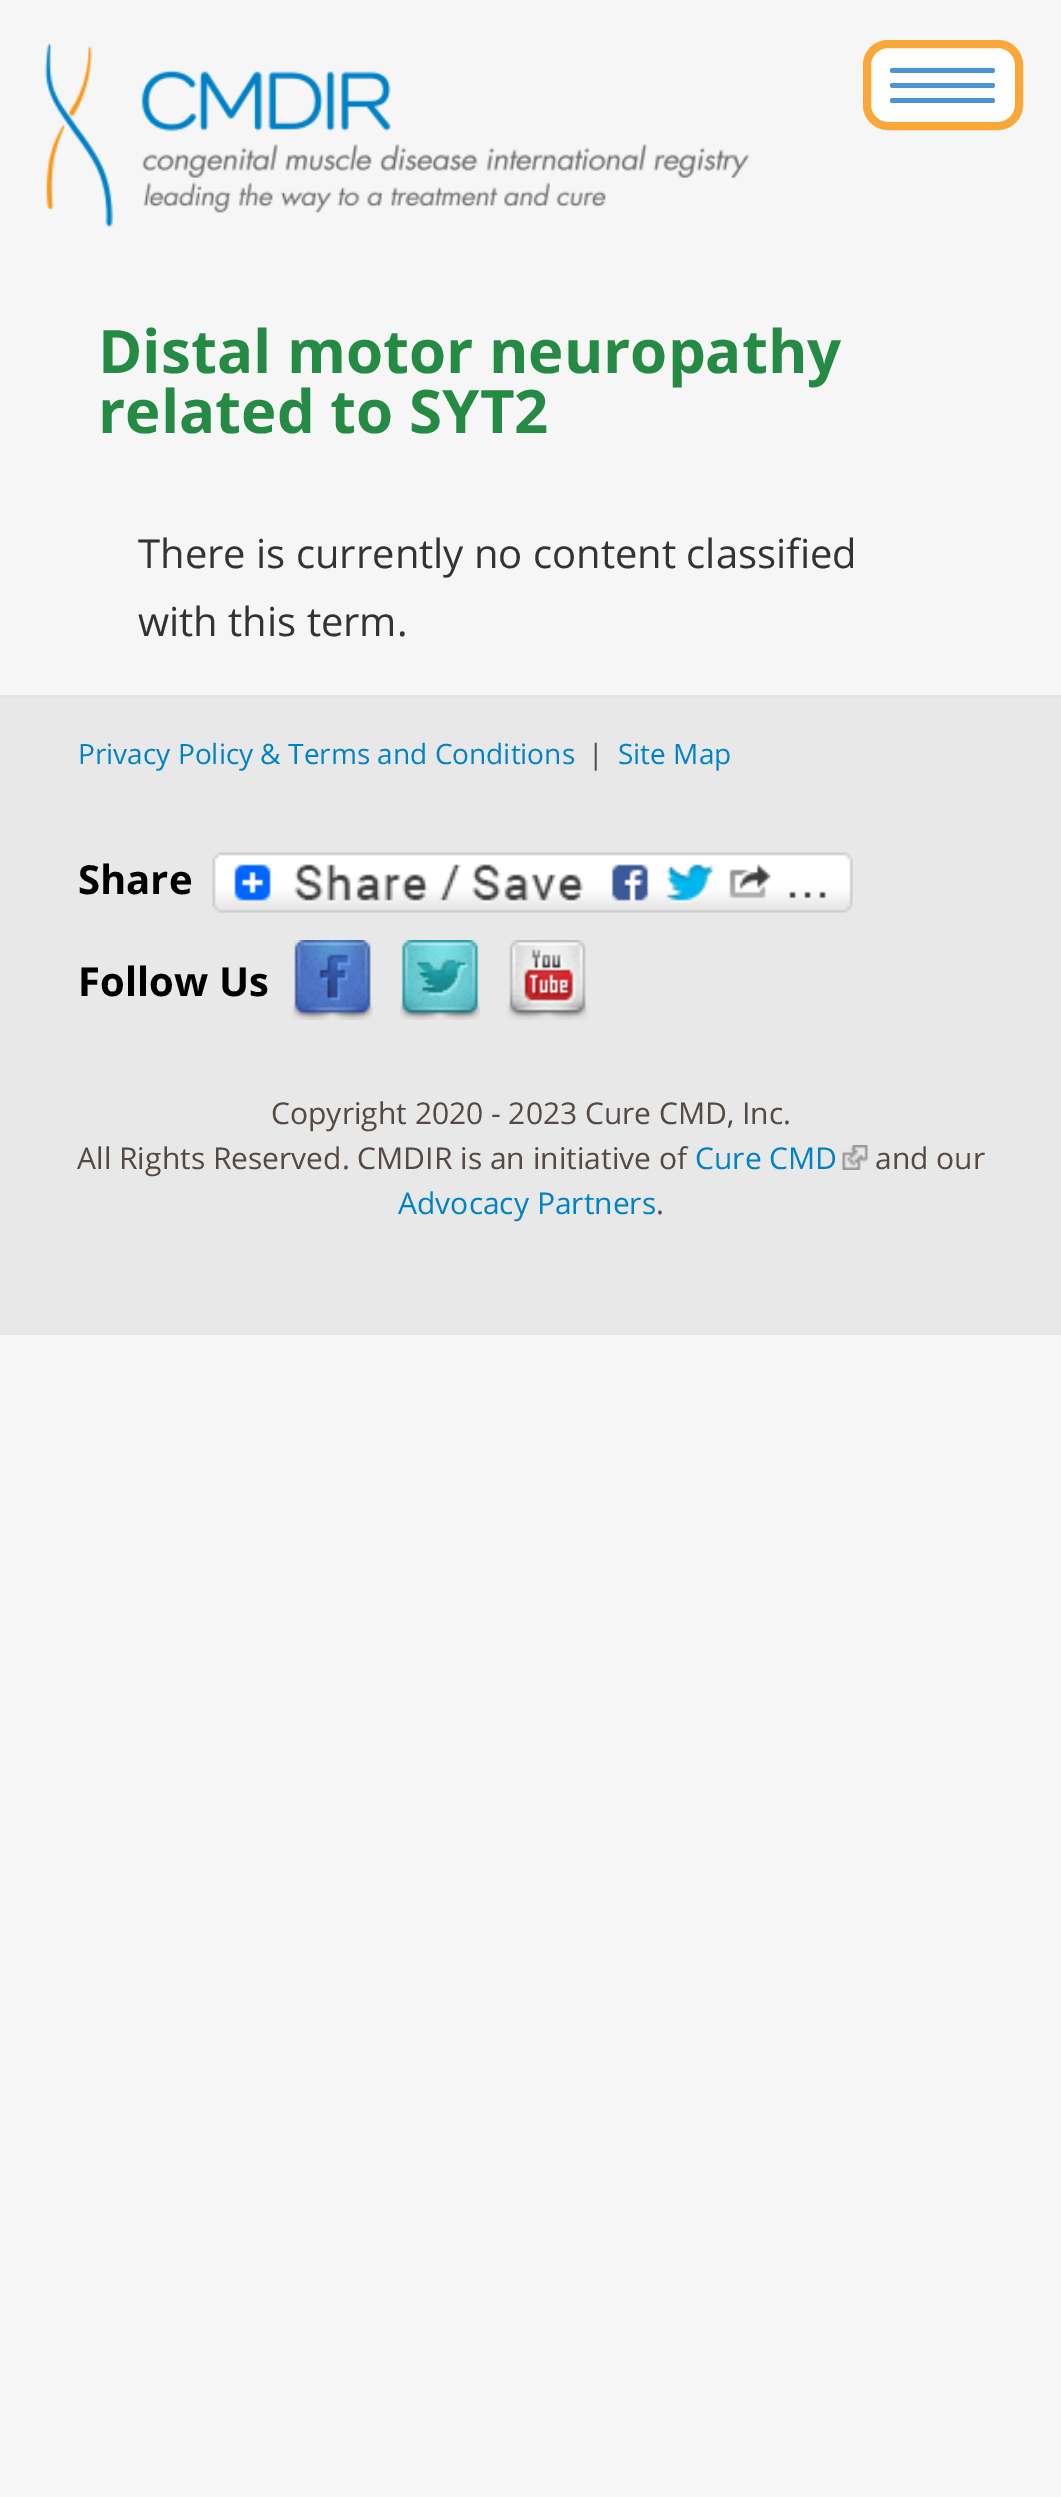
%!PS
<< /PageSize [1061 2497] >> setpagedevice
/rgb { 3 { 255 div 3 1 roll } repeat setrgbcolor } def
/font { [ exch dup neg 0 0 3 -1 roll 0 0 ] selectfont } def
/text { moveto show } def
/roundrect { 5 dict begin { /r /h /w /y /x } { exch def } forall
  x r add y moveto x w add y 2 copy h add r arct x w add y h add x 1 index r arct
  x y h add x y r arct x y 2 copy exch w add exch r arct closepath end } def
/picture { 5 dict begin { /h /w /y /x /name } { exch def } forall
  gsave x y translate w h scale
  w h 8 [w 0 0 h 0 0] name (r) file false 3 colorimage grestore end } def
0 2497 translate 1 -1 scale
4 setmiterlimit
246 246 246 rgb
0 0 1061 2497 rectfill
(img_01.rgb) 44 43 706 184 picture
255 255 255 rgb
867 44 152 82 21 roundrect gsave fill grestore
249 167 56 rgb
8 setlinewidth
stroke
75 148 218 rgb
890 68 105 5 2.5 roundrect fill
890 83 105 5 2.5 roundrect fill
890 98 105 5 2.5 roundrect fill
232 232 232 rgb
0 698 1061 637 rectfill
229 229 229 rgb
0 695 1061 3 rectfill
(img_02.rgb) 212 852 641 61 picture
(img_03.rgb) 292 940 81 80 picture
(img_04.rgb) 400 940 80 80 picture
(img_05.rgb) 507 940 81 80 picture
(img_06.rgb) 842 1145 26 25 picture
/OpenSans-Bold 60 font
37 138 67 rgb
(Distal motor neuropathy) 98 373 text
(related to SYT2) 98 433 text
/OpenSans-Regular 40 font
51 51 51 rgb
(There is currently no content classified) 138 568 text
(with this term.) 138 636 text
/OpenSans-Regular 28 font
0 130 199 rgb
(Privacy Policy & Terms and Conditions) 78 764 text
85 73 68 rgb
(|) 588 764 text
0 130 199 rgb
(Site Map) 618 764 text
/OpenSans-Bold 40 font
0 0 0 rgb
(Share) 78 894 text
(Follow Us) 78 996 text
/OpenSans-Regular 30 font
85 73 68 rgb
(Copyright 2020 - 2023 Cure CMD, Inc.) 271 1124 text
(All Rights Reserved. CMDIR is an initiative of) 77 1169 text
0 130 199 rgb
(Cure CMD) 695 1169 text
85 73 68 rgb
(and our) 875 1169 text
0 130 199 rgb
(Advocacy Partners) 398 1214 text
85 73 68 rgb
(.) 656 1214 text
showpage
